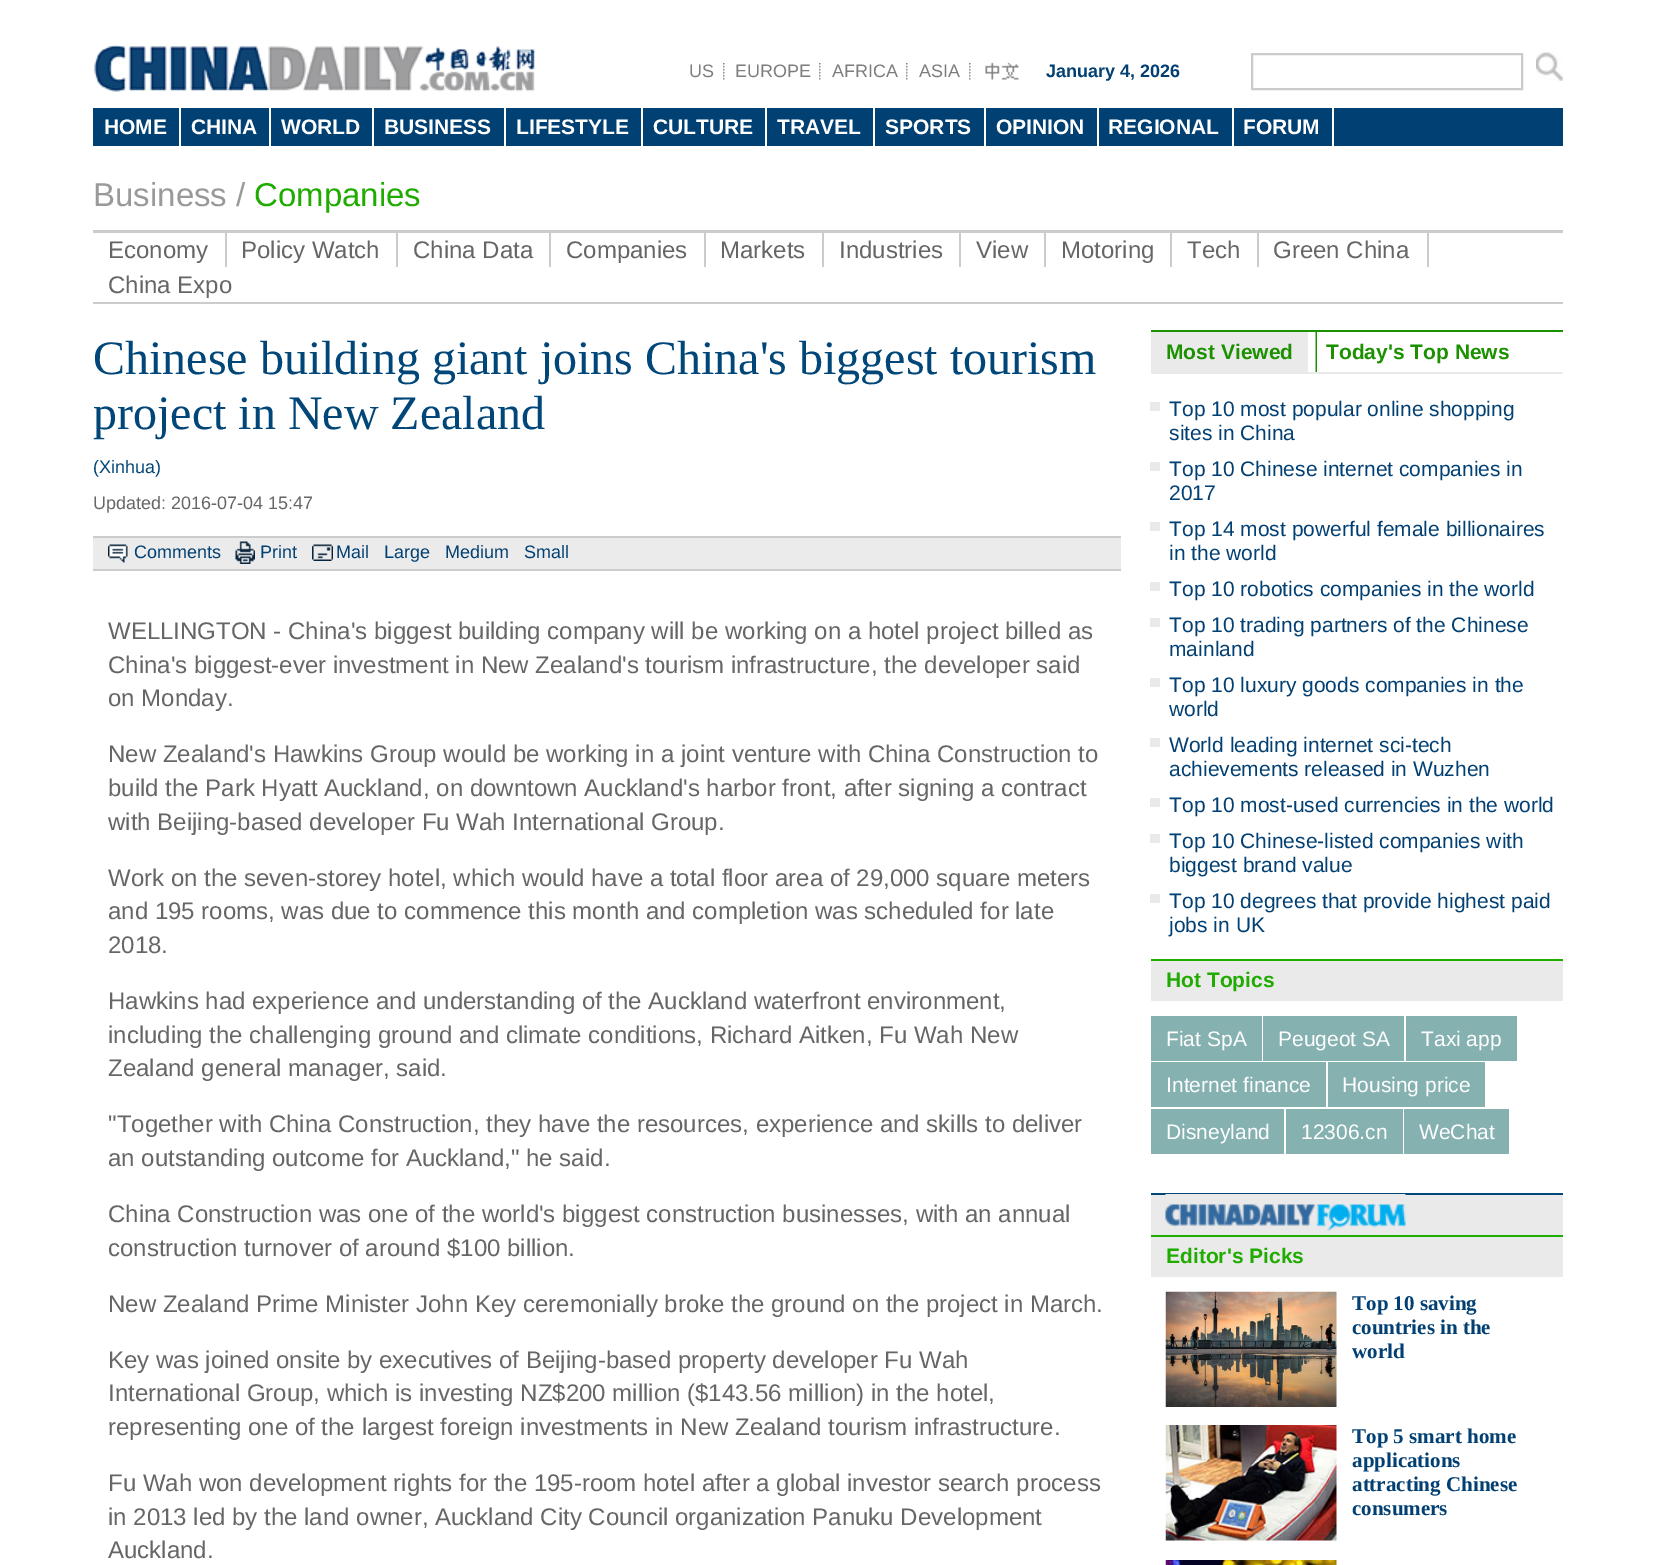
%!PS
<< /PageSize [1655 1565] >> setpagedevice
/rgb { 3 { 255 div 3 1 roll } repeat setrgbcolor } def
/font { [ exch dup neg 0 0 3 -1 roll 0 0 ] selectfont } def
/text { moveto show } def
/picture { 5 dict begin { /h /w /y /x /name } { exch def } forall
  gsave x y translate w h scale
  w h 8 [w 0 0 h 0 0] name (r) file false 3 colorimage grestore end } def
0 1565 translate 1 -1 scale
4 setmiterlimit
255 255 255 rgb
0 0 1655 1565 rectfill
(img_01.rgb) 94 45 442 47 picture
(img_02.rgb) 723 63 2 17 picture
(img_02.rgb) 819 63 2 17 picture
(img_02.rgb) 906 63 2 17 picture
(img_02.rgb) 969 63 2 17 picture
(img_03.rgb) 985 62 34 18 picture
203 203 203 rgb
2 setlinewidth
1252 54 270 35 rectstroke
(img_04.rgb) 1536 52 27 29 picture
1 64 115 rgb
93 108 1470 38 rectfill
255 255 255 rgb
179 108 2 38 rectfill
269 108 2 38 rectfill
372 108 2 38 rectfill
504 108 2 38 rectfill
641 108 2 38 rectfill
765 108 2 38 rectfill
873 108 2 38 rectfill
984 108 2 38 rectfill
1097 108 2 38 rectfill
1232 108 2 38 rectfill
1332 108 2 38 rectfill
204 204 204 rgb
93 230 1470 3 rectfill
93 302 1470 2 rectfill
225 233 2 34 rectfill
396 233 2 34 rectfill
549 233 2 34 rectfill
704 233 2 34 rectfill
822 233 2 34 rectfill
959 233 2 34 rectfill
1044 233 2 34 rectfill
1170 233 2 34 rectfill
1257 233 2 34 rectfill
1427 233 2 34 rectfill
235 235 235 rgb
93 538 1028 31 rectfill
204 204 204 rgb
93 536 1028 2 rectfill
93 569 1028 2 rectfill
(img_05.rgb) 108 544 20 19 picture
(img_06.rgb) 235 541 20 23 picture
(img_07.rgb) 312 544 21 17 picture
(img_08.rgb) 1315 332 2 40 picture
26 146 0 rgb
1151 330 412 2 rectfill
234 234 234 rgb
1151 372 412 2 rectfill
1151 332 157 40 rectfill
233 233 233 rgb
1150 402 10 9 rectfill
1150 462 10 9 rectfill
1150 522 10 9 rectfill
1150 582 10 9 rectfill
1150 618 10 9 rectfill
1150 678 10 9 rectfill
1150 738 10 9 rectfill
1150 798 10 9 rectfill
1150 834 10 9 rectfill
1150 894 10 9 rectfill
234 234 234 rgb
1151 961 412 40 rectfill
31 173 0 rgb
1151 959 412 2 rectfill
133 177 176 rgb
1151 1016 111 45 rectfill
1263 1016 141 45 rectfill
1406 1016 111 45 rectfill
1151 1062 175 45 rectfill
1328 1062 157 45 rectfill
1151 1109 133 45 rectfill
1286 1109 117 45 rectfill
1404 1109 105 45 rectfill
234 234 234 rgb
1151 1195 412 40 rectfill
0 70 119 rgb
1151 1193 412 2 rectfill
(img_09.rgb) 1165 1194 241 37 picture
234 234 234 rgb
1151 1237 412 40 rectfill
31 173 0 rgb
1151 1235 412 2 rectfill
(img_10.rgb) 1165 1291 172 116 picture
(img_11.rgb) 1165 1425 172 116 picture
(img_12.rgb) 1165 1560 172 5 picture
/LiberationSans-Regular 18 font
125 125 125 rgb
(US) 689 77 text
(EUROPE) 735 77 text
(AFRICA) 832 77 text
(ASIA) 919 77 text
/LiberationSans-Bold 18 font
2 64 115 rgb
(January 4, 2026) 1046 77 text
/LiberationSans-Bold 21 font
255 255 255 rgb
(HOME) 104 134 text
(CHINA) 191 134 text
(WORLD) 281 134 text
(BUSINESS) 384 134 text
(LIFESTYLE) 516 134 text
(CULTURE) 653 134 text
(TRAVEL) 777 134 text
(SPORTS) 885 134 text
(OPINION) 996 134 text
(REGIONAL) 1108 134 text
(FORUM) 1243 134 text
/LiberationSans-Regular 33 font
153 153 153 rgb
(Business /) 93 206 text
31 171 0 rgb
(Companies) 254 206 text
/LiberationSans-Regular 24 font
102 102 102 rgb
(Economy) 108 258 text
(Policy Watch) 241 258 text
(China Data) 413 258 text
(Companies) 566 258 text
(Markets) 720 258 text
(Industries) 839 258 text
(View) 976 258 text
(Motoring) 1061 258 text
(Tech) 1187 258 text
(Green China) 1273 258 text
(China Expo) 108 293 text
/LiberationSerif-Regular 48 font
0 70 120 rgb
(Chinese building giant joins China's biggest tourism) 93 374 text
(project in New Zealand) 93 429 text
/LiberationSans-Regular 18 font
(\(Xinhua\)) 93 473 text
102 102 102 rgb
(Updated: 2016-07-04 15:47) 93 509 text
2 64 115 rgb
(Comments) 134 558 text
(Print) 260 558 text
(Mail) 336 558 text
(Large) 384 558 text
(Medium) 445 558 text
(Small) 524 558 text
/LiberationSans-Regular 24 font
102 102 102 rgb
(WELLINGTON - China's biggest building company will be working on a hotel project billed as) 108 639 text
(China's biggest-ever investment in New Zealand's tourism infrastructure, the developer said) 108 673 text
(on Monday.) 108 706 text
(New Zealand's Hawkins Group would be working in a joint venture with China Construction to) 108 762 text
(build the Park Hyatt Auckland, on downtown Auckland's harbor front, after signing a contract) 108 796 text
(with Beijing-based developer Fu Wah International Group.) 108 830 text
(Work on the seven-storey hotel, which would have a total floor area of 29,000 square meters) 108 886 text
(and 195 rooms, was due to commence this month and completion was scheduled for late) 108 919 text
(2018.) 108 953 text
(Hawkins had experience and understanding of the Auckland waterfront environment,) 108 1009 text
(including the challenging ground and climate conditions, Richard Aitken, Fu Wah New) 108 1043 text
(Zealand general manager, said.) 108 1076 text
("Together with China Construction, they have the resources, experience and skills to deliver) 108 1132 text
(an outstanding outcome for Auckland," he said.) 108 1166 text
(China Construction was one of the world's biggest construction businesses, with an annual) 108 1222 text
(construction turnover of around $100 billion.) 108 1256 text
(New Zealand Prime Minister John Key ceremonially broke the ground on the project in March.) 108 1312 text
(Key was joined onsite by executives of Beijing-based property developer Fu Wah) 108 1368 text
(International Group, which is investing NZ$200 million \($143.56 million\) in the hotel,) 108 1401 text
(representing one of the largest foreign investments in New Zealand tourism infrastructure.) 108 1435 text
(Fu Wah won development rights for the 195-room hotel after a global investor search process) 108 1491 text
(in 2013 led by the land owner, Auckland City Council organization Panuku Development) 108 1525 text
(Auckland.) 108 1558 text
/LiberationSans-Bold 21 font
27 145 0 rgb
(Most Viewed) 1166 359 text
(Today's Top News) 1326 359 text
/LiberationSans-Regular 21 font
2 64 115 rgb
(Top 10 most popular online shopping) 1169 416 text
(sites in China) 1169 440 text
(Top 10 Chinese internet companies in) 1169 476 text
(2017) 1169 500 text
(Top 14 most powerful female billionaires) 1169 536 text
(in the world) 1169 560 text
(Top 10 robotics companies in the world) 1169 596 text
(Top 10 trading partners of the Chinese) 1169 632 text
(mainland) 1169 656 text
(Top 10 luxury goods companies in the) 1169 692 text
(world) 1169 716 text
(World leading internet sci-tech) 1169 752 text
(achievements released in Wuzhen) 1169 776 text
(Top 10 most-used currencies in the world) 1169 812 text
(Top 10 Chinese-listed companies with) 1169 848 text
(biggest brand value) 1169 872 text
(Top 10 degrees that provide highest paid) 1169 908 text
(jobs in UK) 1169 932 text
/LiberationSans-Bold 21 font
31 171 0 rgb
(Hot Topics) 1166 987 text
/LiberationSans-Regular 21 font
255 255 255 rgb
(Fiat SpA) 1166 1046 text
(Peugeot SA) 1278 1046 text
(Taxi app) 1421 1046 text
(Internet finance) 1166 1092 text
(Housing price) 1342 1092 text
(Disneyland) 1166 1139 text
(12306.cn) 1301 1139 text
(WeChat) 1419 1139 text
/LiberationSans-Bold 21 font
31 171 0 rgb
(Editor's Picks) 1166 1263 text
/LiberationSerif-Bold 21 font
2 64 115 rgb
(Top 10 saving) 1352 1310 text
(countries in the) 1352 1334 text
(world) 1352 1358 text
(Top 5 smart home) 1352 1443 text
(applications) 1352 1467 text
(attracting Chinese) 1352 1491 text
(consumers) 1352 1515 text
showpage
